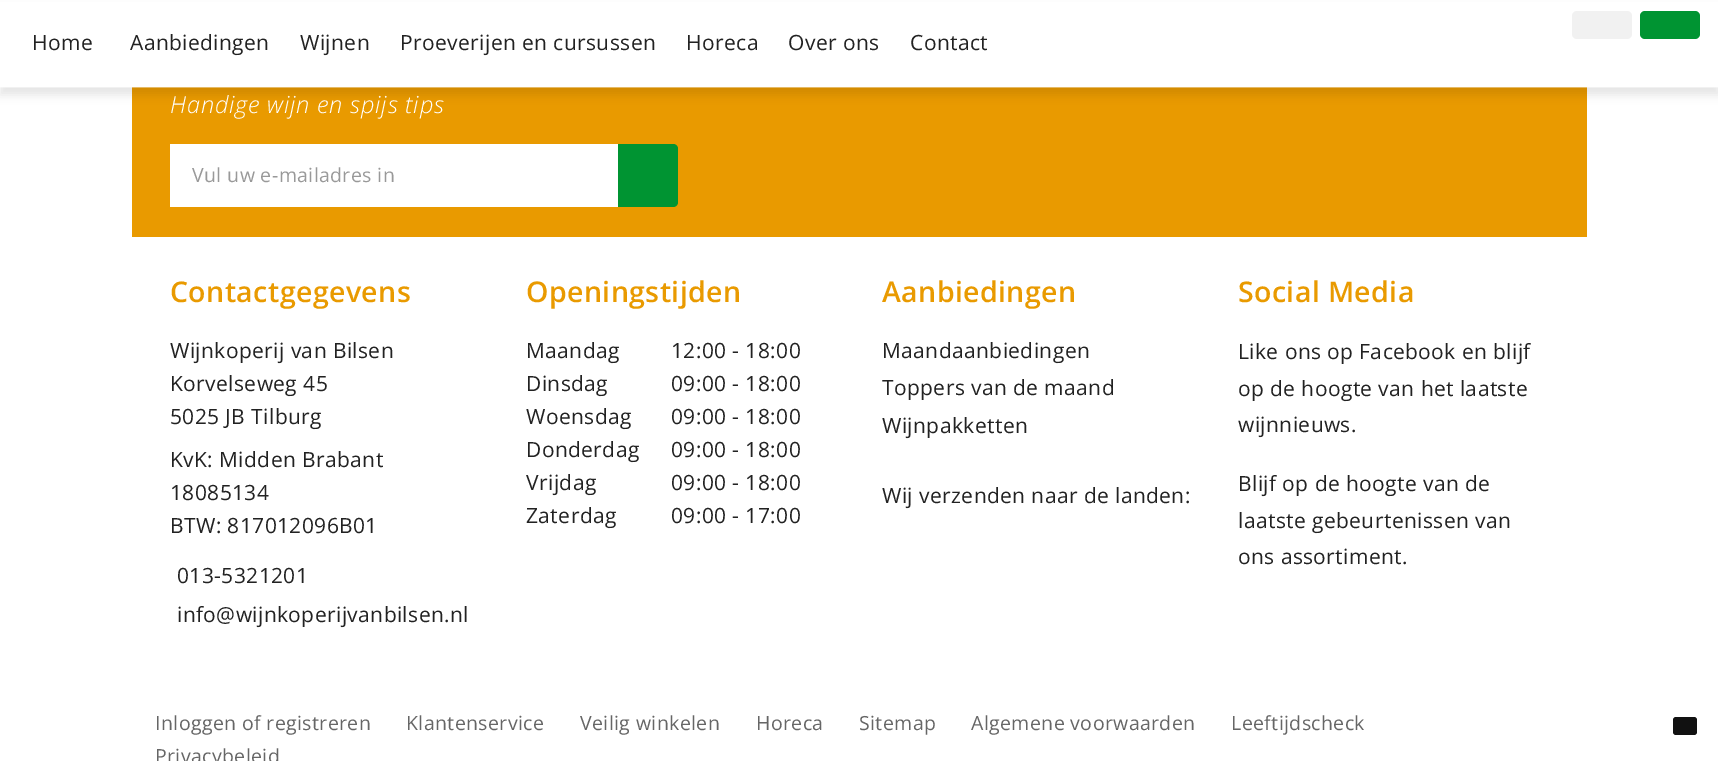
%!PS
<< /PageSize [1718 761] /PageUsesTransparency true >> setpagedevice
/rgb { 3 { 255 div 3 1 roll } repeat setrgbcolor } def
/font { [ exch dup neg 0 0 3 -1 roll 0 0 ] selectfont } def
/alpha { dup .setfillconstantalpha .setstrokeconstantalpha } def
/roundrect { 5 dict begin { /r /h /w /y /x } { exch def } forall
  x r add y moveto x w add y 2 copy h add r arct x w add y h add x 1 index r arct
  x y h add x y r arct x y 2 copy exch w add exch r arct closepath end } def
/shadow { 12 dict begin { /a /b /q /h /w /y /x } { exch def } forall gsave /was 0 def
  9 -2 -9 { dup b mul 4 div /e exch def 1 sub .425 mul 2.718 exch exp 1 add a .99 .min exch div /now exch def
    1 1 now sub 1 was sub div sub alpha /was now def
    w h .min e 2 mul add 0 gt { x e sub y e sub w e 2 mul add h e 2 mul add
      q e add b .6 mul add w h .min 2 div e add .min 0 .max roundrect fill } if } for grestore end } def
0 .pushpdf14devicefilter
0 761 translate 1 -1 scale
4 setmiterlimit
255 255 255 rgb
0 0 1718 761 rectfill
233 154 0 rgb
132 87 1455 150 rectfill
0 0 0 rgb
0 8 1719 87 0 4.5 0.1 shadow
255 255 255 rgb
0 2 1718 85 rectfill
0.4 alpha
0 87 1718 1 rectfill
1 alpha
241 241 241 rgb
1572 11 60 28 5 roundrect fill
0 148 50 rgb
1640 11 60 28 5 roundrect fill
255 255 255 rgb
170 144 448 63 rectfill
0 148 50 rgb
618 144 moveto 55 0 rlineto 3 0 5 2 5 5 rcurveto 0 53 rlineto 0 3 -2 5 -5 5 rcurveto -55 0 rlineto closepath fill
17 17 17 rgb
1673 717 24 18 3 roundrect fill
/OpenSans-Regular 21 font
34 34 34 rgb
32 50 moveto 0.4 0 (Home) ashow
130 50 moveto 0.4 0 (Aanbiedingen) ashow
300 50 moveto 0.4 0 (Wijnen) ashow
400 50 moveto 0.4 0 (Proeverijen en cursussen) ashow
686 50 moveto 0.4 0 (Horeca) ashow
788 50 moveto 0.4 0 (Over ons) ashow
910 50 moveto 0.4 0 (Contact) ashow
/OpenSans-LightItalic 23.6 font
255 255 255 rgb
170 113 moveto 0.75 0 (Handige wijn en spijs tips) ashow
/OpenSans-Regular 19.5 font
153 153 153 rgb
192 182 moveto 0.4 0 (Vul uw e-mailadres in) ashow
/OpenSans-SemiBold 28.5 font
233 154 0 rgb
170 302 moveto 0.4 0 (Contactgegevens) ashow
/OpenSans-Regular 21 font
34 34 34 rgb
170 358 moveto 0.4 0 (Wijnkoperij van Bilsen) ashow
170 391 moveto 0.4 0 (Korvelseweg 45) ashow
170 424 moveto 0.4 0 (5025 JB Tilburg) ashow
170 467 moveto 0.4 0 (KvK: Midden Brabant) ashow
170 500 moveto 0.4 0 (18085134) ashow
170 533 moveto 0.4 0 (BTW: 817012096B01) ashow
177 583 moveto 0.4 0 (013-5321201) ashow
177 622 moveto 0.4 0 (info@wijnkoperijvanbilsen.nl) ashow
/OpenSans-SemiBold 28.5 font
233 154 0 rgb
526 302 moveto 0.4 0 (Openingstijden) ashow
/OpenSans-Regular 21 font
34 34 34 rgb
526 358 moveto 0.4 0 (Maandag) ashow
671 358 moveto 0.4 0 (12:00 - 18:00) ashow
526 391 moveto 0.4 0 (Dinsdag) ashow
671 391 moveto 0.4 0 (09:00 - 18:00) ashow
526 424 moveto 0.4 0 (Woensdag) ashow
671 424 moveto 0.4 0 (09:00 - 18:00) ashow
526 457 moveto 0.4 0 (Donderdag) ashow
671 457 moveto 0.4 0 (09:00 - 18:00) ashow
526 490 moveto 0.4 0 (Vrijdag) ashow
671 490 moveto 0.4 0 (09:00 - 18:00) ashow
526 523 moveto 0.4 0 (Zaterdag) ashow
671 523 moveto 0.4 0 (09:00 - 17:00) ashow
/OpenSans-SemiBold 28.5 font
233 154 0 rgb
882 302 moveto 0.4 0 (Aanbiedingen) ashow
/OpenSans-Regular 21 font
34 34 34 rgb
882 358 moveto 0.4 0 (Maandaanbiedingen) ashow
882 395 moveto 0.4 0 (Toppers van de maand) ashow
882 433 moveto 0.4 0 (Wijnpakketten) ashow
882 503 moveto 0.4 0 (Wij verzenden naar de landen:) ashow
/OpenSans-SemiBold 28.5 font
233 154 0 rgb
1238 302 moveto 0.4 0 (Social Media) ashow
/OpenSans-Regular 21 font
34 34 34 rgb
1238 359 moveto 0.4 0 (Like ons op Facebook en blijf) ashow
1238 396 moveto 0.4 0 (op de hoogte van het laatste) ashow
1238 432 moveto 0.4 0 (wijnnieuws.) ashow
1238 491 moveto 0.4 0 (Blijf op de hoogte van de) ashow
1238 528 moveto 0.4 0 (laatste gebeurtenissen van) ashow
1238 564 moveto 0.4 0 (ons assortiment.) ashow
/OpenSans-Regular 19.5 font
102 102 102 rgb
155 730 moveto 0.4 0 (Inloggen of registreren) ashow
406 730 moveto 0.4 0 (Klantenservice) ashow
580 730 moveto 0.4 0 (Veilig winkelen) ashow
756 730 moveto 0.4 0 (Horeca) ashow
859 730 moveto 0.4 0 (Sitemap) ashow
971 730 moveto 0.4 0 (Algemene voorwaarden) ashow
1231 730 moveto 0.4 0 (Leeftijdscheck) ashow
155 763 moveto 0.4 0 (Privacybeleid) ashow
.poppdf14devicefilter showpage
